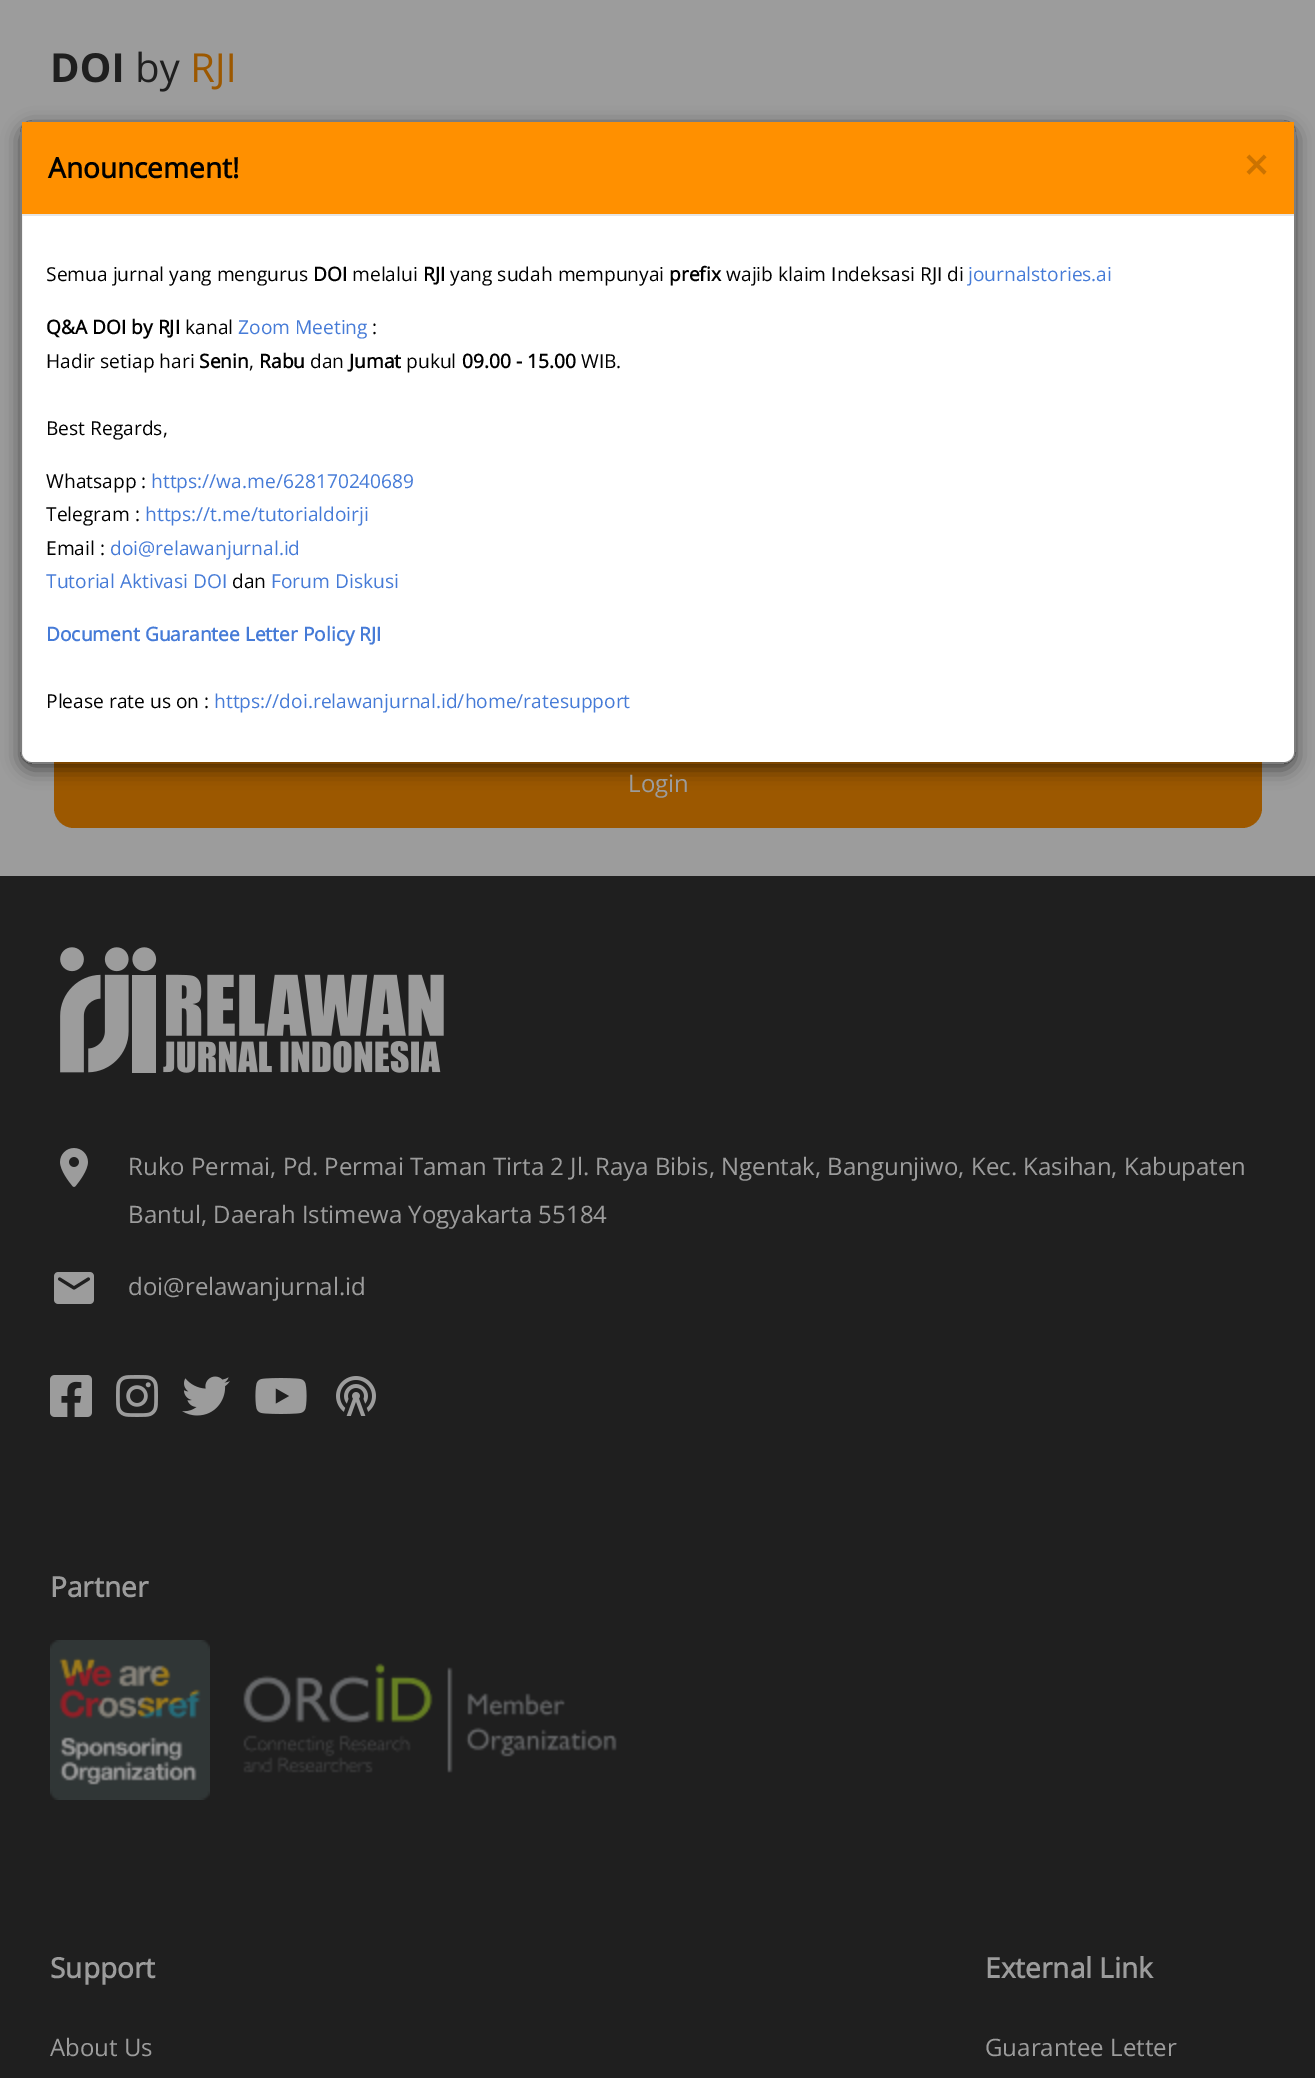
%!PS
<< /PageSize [1315 2078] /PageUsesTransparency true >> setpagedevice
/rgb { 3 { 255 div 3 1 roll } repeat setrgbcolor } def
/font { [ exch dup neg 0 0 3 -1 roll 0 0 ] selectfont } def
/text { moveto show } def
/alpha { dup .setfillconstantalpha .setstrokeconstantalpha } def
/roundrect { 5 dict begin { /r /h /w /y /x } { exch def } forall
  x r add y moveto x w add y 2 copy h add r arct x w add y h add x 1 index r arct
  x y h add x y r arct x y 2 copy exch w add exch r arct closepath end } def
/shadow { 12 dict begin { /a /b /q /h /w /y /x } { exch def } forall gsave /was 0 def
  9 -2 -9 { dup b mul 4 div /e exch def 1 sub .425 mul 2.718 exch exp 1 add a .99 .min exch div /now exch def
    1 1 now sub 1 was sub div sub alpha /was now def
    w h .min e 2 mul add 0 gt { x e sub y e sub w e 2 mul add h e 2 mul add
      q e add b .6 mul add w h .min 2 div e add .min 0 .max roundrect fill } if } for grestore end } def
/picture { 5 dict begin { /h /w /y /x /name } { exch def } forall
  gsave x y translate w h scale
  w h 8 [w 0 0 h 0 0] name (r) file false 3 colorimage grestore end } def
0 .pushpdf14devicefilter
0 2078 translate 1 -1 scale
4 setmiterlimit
156 156 156 rgb
0 0 1315 2078 rectfill
(img_01.rgb) 53 51 180 41 picture
156 88 0 rgb
54 740 1208 88 20 roundrect fill
gsave
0 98 moveto 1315 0 rlineto 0 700 rlineto -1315 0 rlineto closepath 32 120 moveto 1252 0 rlineto 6.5 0 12 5.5 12 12 rcurveto 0 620 rlineto 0 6.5 -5.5 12 -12 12 rcurveto -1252 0 rlineto -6.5 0 -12 -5.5 -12 -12 rcurveto 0 -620 rlineto 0 -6.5 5.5 -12 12 -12 rcurveto closepath eoclip newpath
0 0 0 rgb
20 126 1276 644 12 9 0.5 shadow
grestore
255 255 255 rgb
22 122 1272 640 10 roundrect fill
0.2 alpha
0 0 0 rgb
2 setlinewidth
21 121 1274 642 11 roundrect stroke
1 alpha
255 144 0 rgb
22 122 1272 92 rectfill
229 229 229 rgb
22 214 1272 2 rectfill
31 31 31 rgb
0 876 1315 1202 rectfill
(img_02.rgb) 60 947 384 126 picture
(img_03.rgb) 60 1148 28 39 picture
(img_04.rgb) 54 1272 40 32 picture
(img_05.rgb) 50 1375 42 42 picture
(img_06.rgb) 116 1375 42 42 picture
(img_07.rgb) 182 1376 48 40 picture
(img_08.rgb) 255 1378 52 36 picture
(img_09.rgb) 336 1376 40 40 picture
(img_10.rgb) 50 1640 160 160 picture
(img_11.rgb) 243 1663 374 110 picture
/OpenSans-Bold 28 font
0 0 0 rgb
(Anouncement!) 48 178 text
/OpenSans-Bold 42 font
204 115 0 rgb
(×) 1244 180 text
/OpenSans-Regular 19.2 font
0 0 0 rgb
(Semua jurnal yang mengurus) 46 281 text
/OpenSans-Bold 19.2 font
(DOI) 313 281 text
/OpenSans-Regular 19.2 font
(melalui) 352 281 text
/OpenSans-Bold 19.2 font
(RJI) 423 281 text
/OpenSans-Regular 19.2 font
(yang sudah mempunyai) 450 281 text
/OpenSans-Bold 19.2 font
(prefix) 669 281 text
/OpenSans-Regular 19.2 font
(wajib klaim Indeksasi RJI di) 726 281 text
70 123 215 rgb
(journalstories.ai) 968 281 text
/OpenSans-Bold 19.2 font
0 0 0 rgb
(Q&A DOI by RJI) 46 334 text
/OpenSans-Regular 19.2 font
(kanal) 185 334 text
70 123 215 rgb
(Zoom Meeting) 238 334 text
0 0 0 rgb
(:) 372 334 text
(Hadir setiap hari) 46 368 text
/OpenSans-Bold 19.2 font
(Senin) 199 368 text
/OpenSans-Regular 19.2 font
(,) 249 368 text
/OpenSans-Bold 19.2 font
(Rabu) 259 368 text
/OpenSans-Regular 19.2 font
(dan) 310 368 text
/OpenSans-Bold 19.2 font
(Jumat) 349 368 text
/OpenSans-Regular 19.2 font
(pukul) 406 368 text
/OpenSans-Bold 19.2 font
(09.00 - 15.00) 462 368 text
/OpenSans-Regular 19.2 font
(WIB.) 581 368 text
(Best Regards,) 46 435 text
(Whatsapp :) 46 488 text
70 123 215 rgb
(https://wa.me/628170240689) 151 488 text
0 0 0 rgb
(Telegram :) 46 521 text
70 123 215 rgb
(https://t.me/tutorialdoirji) 145 521 text
0 0 0 rgb
(Email :) 46 555 text
70 123 215 rgb
(doi@relawanjurnal.id) 110 555 text
(Tutorial Aktivasi DOI) 46 588 text
0 0 0 rgb
(dan) 232 588 text
70 123 215 rgb
(Forum Diskusi) 271 588 text
/OpenSans-Bold 19.2 font
(Document Guarantee Letter Policy RJI) 46 641 text
/OpenSans-Regular 19.2 font
0 0 0 rgb
(Please rate us on :) 46 708 text
70 123 215 rgb
(https://doi.relawanjurnal.id/home/ratesupport) 214 708 text
/OpenSans-Regular 24 font
156 156 156 rgb
(Login) 628 792 text
(Ruko Permai, Pd. Permai Taman Tirta 2 Jl. Raya Bibis, Ngentak, Bangunjiwo, Kec. Kasihan, Kabupaten) 128 1175 text
(Bantul, Daerah Istimewa Yogyakarta 55184) 128 1223 text
(doi@relawanjurnal.id) 128 1295 text
/OpenSans-Bold 28 font
(Partner) 50 1597 text
(Support) 50 1978 text
/OpenSans-Regular 24 font
(About Us) 50 2056 text
/OpenSans-Bold 28 font
(External Link) 985 1978 text
/OpenSans-Regular 24 font
(Guarantee Letter) 985 2056 text
.poppdf14devicefilter showpage
